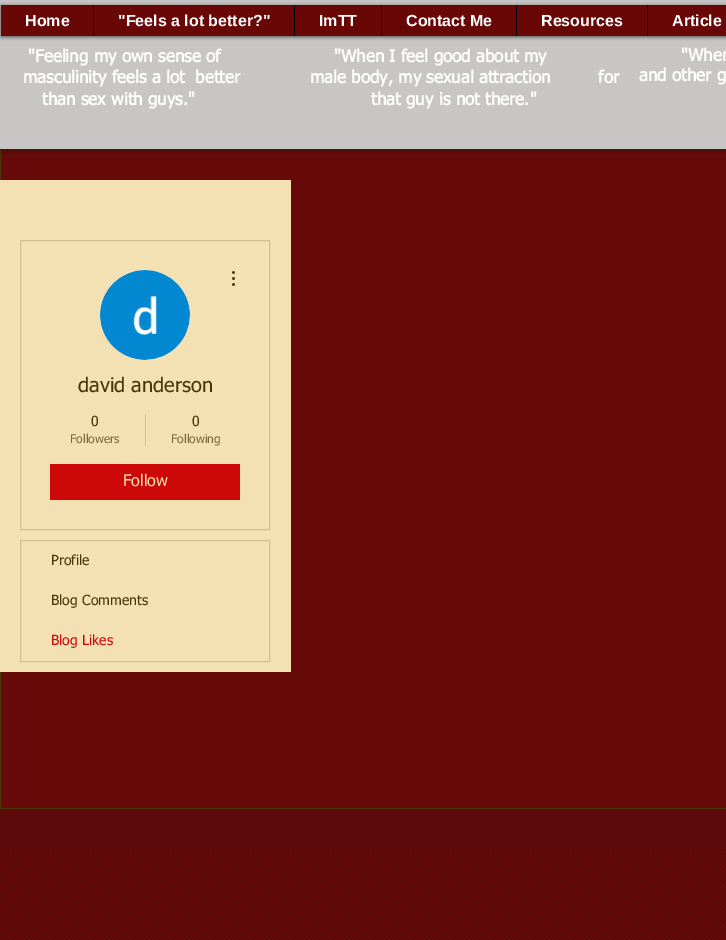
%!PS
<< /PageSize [726 940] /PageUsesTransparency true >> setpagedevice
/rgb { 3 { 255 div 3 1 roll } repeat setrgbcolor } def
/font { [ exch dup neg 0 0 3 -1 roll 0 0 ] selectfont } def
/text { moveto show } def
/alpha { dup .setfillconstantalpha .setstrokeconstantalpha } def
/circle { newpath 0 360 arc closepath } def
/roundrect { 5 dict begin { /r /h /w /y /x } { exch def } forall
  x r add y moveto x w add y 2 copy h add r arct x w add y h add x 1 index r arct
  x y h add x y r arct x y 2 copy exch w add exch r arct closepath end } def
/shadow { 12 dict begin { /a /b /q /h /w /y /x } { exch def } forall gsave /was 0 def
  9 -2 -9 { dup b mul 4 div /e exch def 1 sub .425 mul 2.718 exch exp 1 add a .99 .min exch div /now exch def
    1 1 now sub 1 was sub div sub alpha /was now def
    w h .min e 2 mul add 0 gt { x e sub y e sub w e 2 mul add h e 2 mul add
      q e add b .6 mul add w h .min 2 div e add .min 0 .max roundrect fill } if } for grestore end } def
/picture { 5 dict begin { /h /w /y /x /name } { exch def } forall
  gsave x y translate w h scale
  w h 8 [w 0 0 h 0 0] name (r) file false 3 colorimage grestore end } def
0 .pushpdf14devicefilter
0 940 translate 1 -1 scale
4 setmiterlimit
102 10 10 rgb
0 0 726 940 rectfill
73 53 8 rgb
0.5 149.5 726 659 rectstroke
0 0 0 rgb
0 0 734 149 0 2.5 0.7 shadow
199 198 197 rgb
0 0 726 149 rectfill
0 0 0 rgb
1 6 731 31 0 2 0.6 shadow
105 7 7 rgb
1 5 725 31 rectfill
0 0 0 rgb
93 5 1 31 rectfill
294 5 1 31 rectfill
381 5 1 31 rectfill
516 5 1 31 rectfill
647 5 1 31 rectfill
243 224 179 rgb
0 180 291 492 rectfill
209 190 145 rgb
20.5 240.5 249 289 rectstroke
216 216 216 rgb
145 315 45 circle fill
(img_01.rgb) 100 270 90 90 picture
(img_02.rgb) 232 271 3 15 picture
209 190 145 rgb
145 414 1 32 rectfill
204 8 8 rgb
50 464 190 36 rectfill
209 190 145 rgb
20.5 540.5 249 121 rectstroke
95 10 10 rgb
0 809 726 40 rectfill
(img_03.rgb) 0 849 726 91 picture
/LiberationSans-Bold 16 font
255 255 255 rgb
(Home) 25 26 text
("Feels a lot better?") 118 26 text
(ImTT) 319 26 text
(Contact Me) 406 26 text
(Resources) 541 26 text
(Article) 672 26 text
/tahoma-Bold 17 font
("Feeling my own sense of) 28 62 text
(masculinity feels a lot  better) 23 83 text
(than sex with guys.") 42 105 text
("When I feel good about my) 334 62 text
(male body, my sexual attraction         for) 310 83 text
(that guy is not there.") 371 105 text
("When) 681 61 text
(and other g) 639 81 text
/tahoma-Regular 20 font
73 53 8 rgb
(david anderson) 78 392 text
/tahoma-Regular 14 font
(0) 91 426 text
/tahoma-Regular 12 font
124 104 59 rgb
(Followers) 70 443 text
/tahoma-Regular 14 font
73 53 8 rgb
(0) 192 426 text
/tahoma-Regular 12 font
124 104 59 rgb
(Following) 171 443 text
/tahoma-Regular 16 font
243 224 179 rgb
(Follow) 123 486 text
/tahoma-Regular 14 font
73 53 8 rgb
(Profile) 51 565 text
(Blog Comments) 51 605 text
204 8 8 rgb
(Blog Likes) 51 645 text
.poppdf14devicefilter showpage
